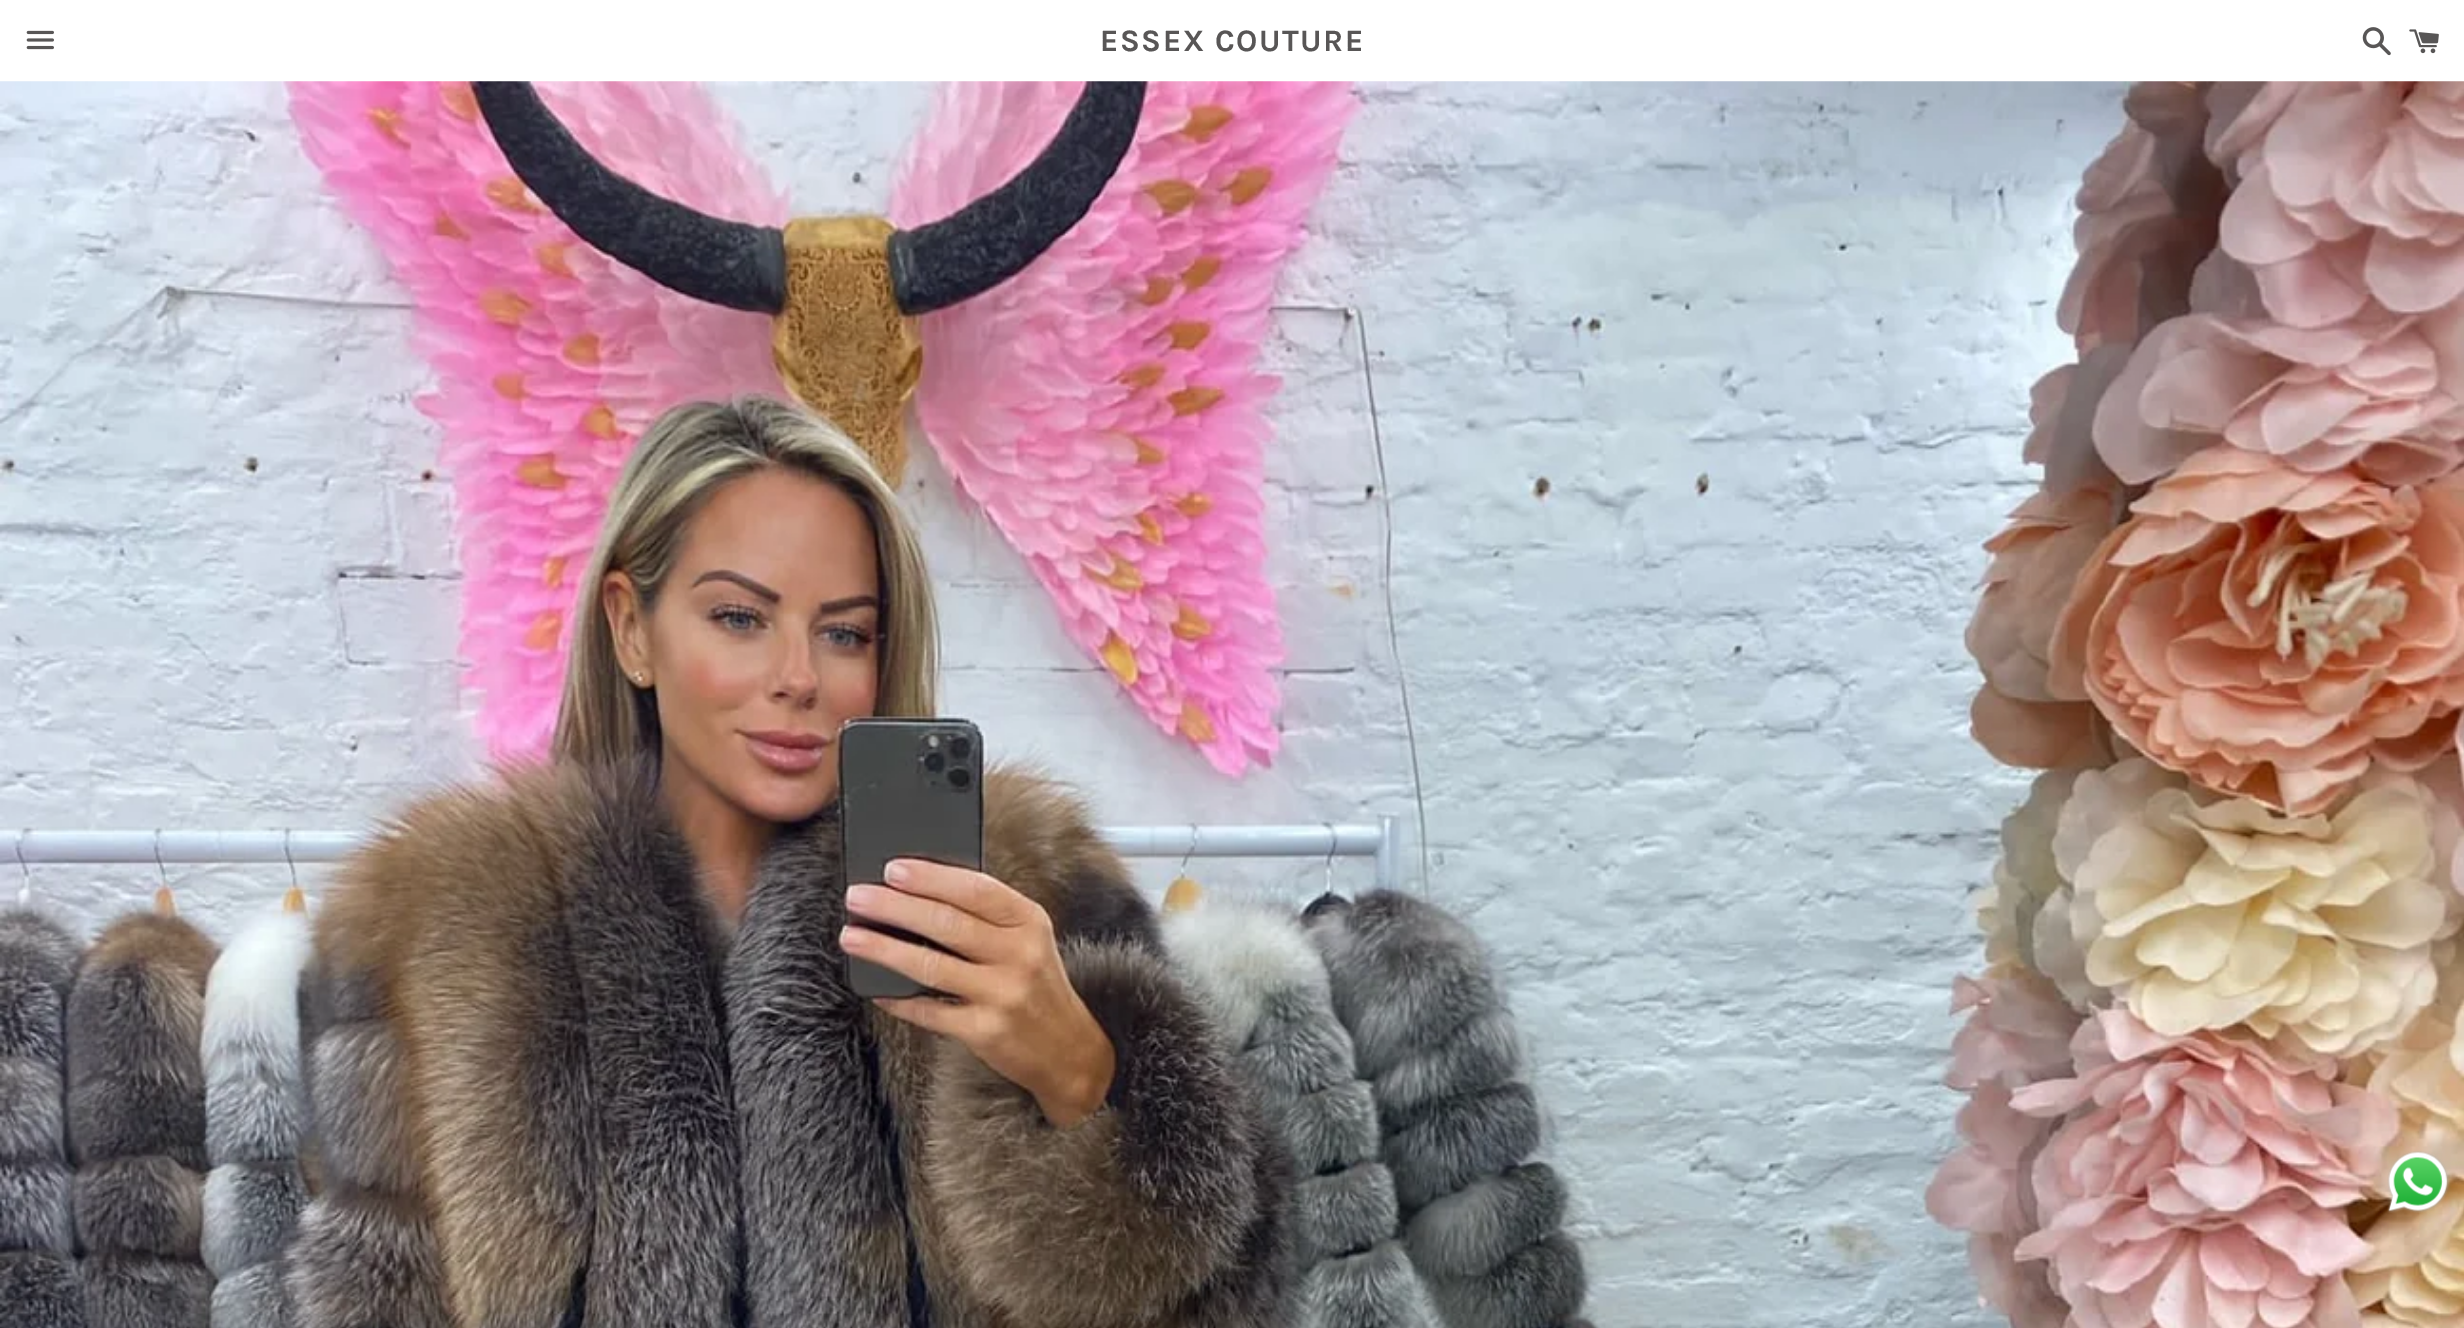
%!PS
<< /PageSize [2464 1328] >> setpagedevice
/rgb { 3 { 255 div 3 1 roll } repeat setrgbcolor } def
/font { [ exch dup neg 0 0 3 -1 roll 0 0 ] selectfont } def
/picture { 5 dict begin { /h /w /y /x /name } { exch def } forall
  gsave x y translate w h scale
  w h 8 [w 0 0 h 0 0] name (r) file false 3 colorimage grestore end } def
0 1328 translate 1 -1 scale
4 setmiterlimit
255 255 255 rgb
0 0 2464 1328 rectfill
(img_01.rgb) 26 30 28 20 picture
(img_02.rgb) 2362 27 29 29 picture
(img_03.rgb) 2409 29 30 25 picture
(img_04.rgb) 0 81 2464 1247 picture
(img_05.rgb) 2387 1151 63 62 picture
/Karla-Bold 31.25 font
88 86 86 rgb
1100 51 moveto 1.5 0 (ESSEX COUTURE) ashow
showpage
